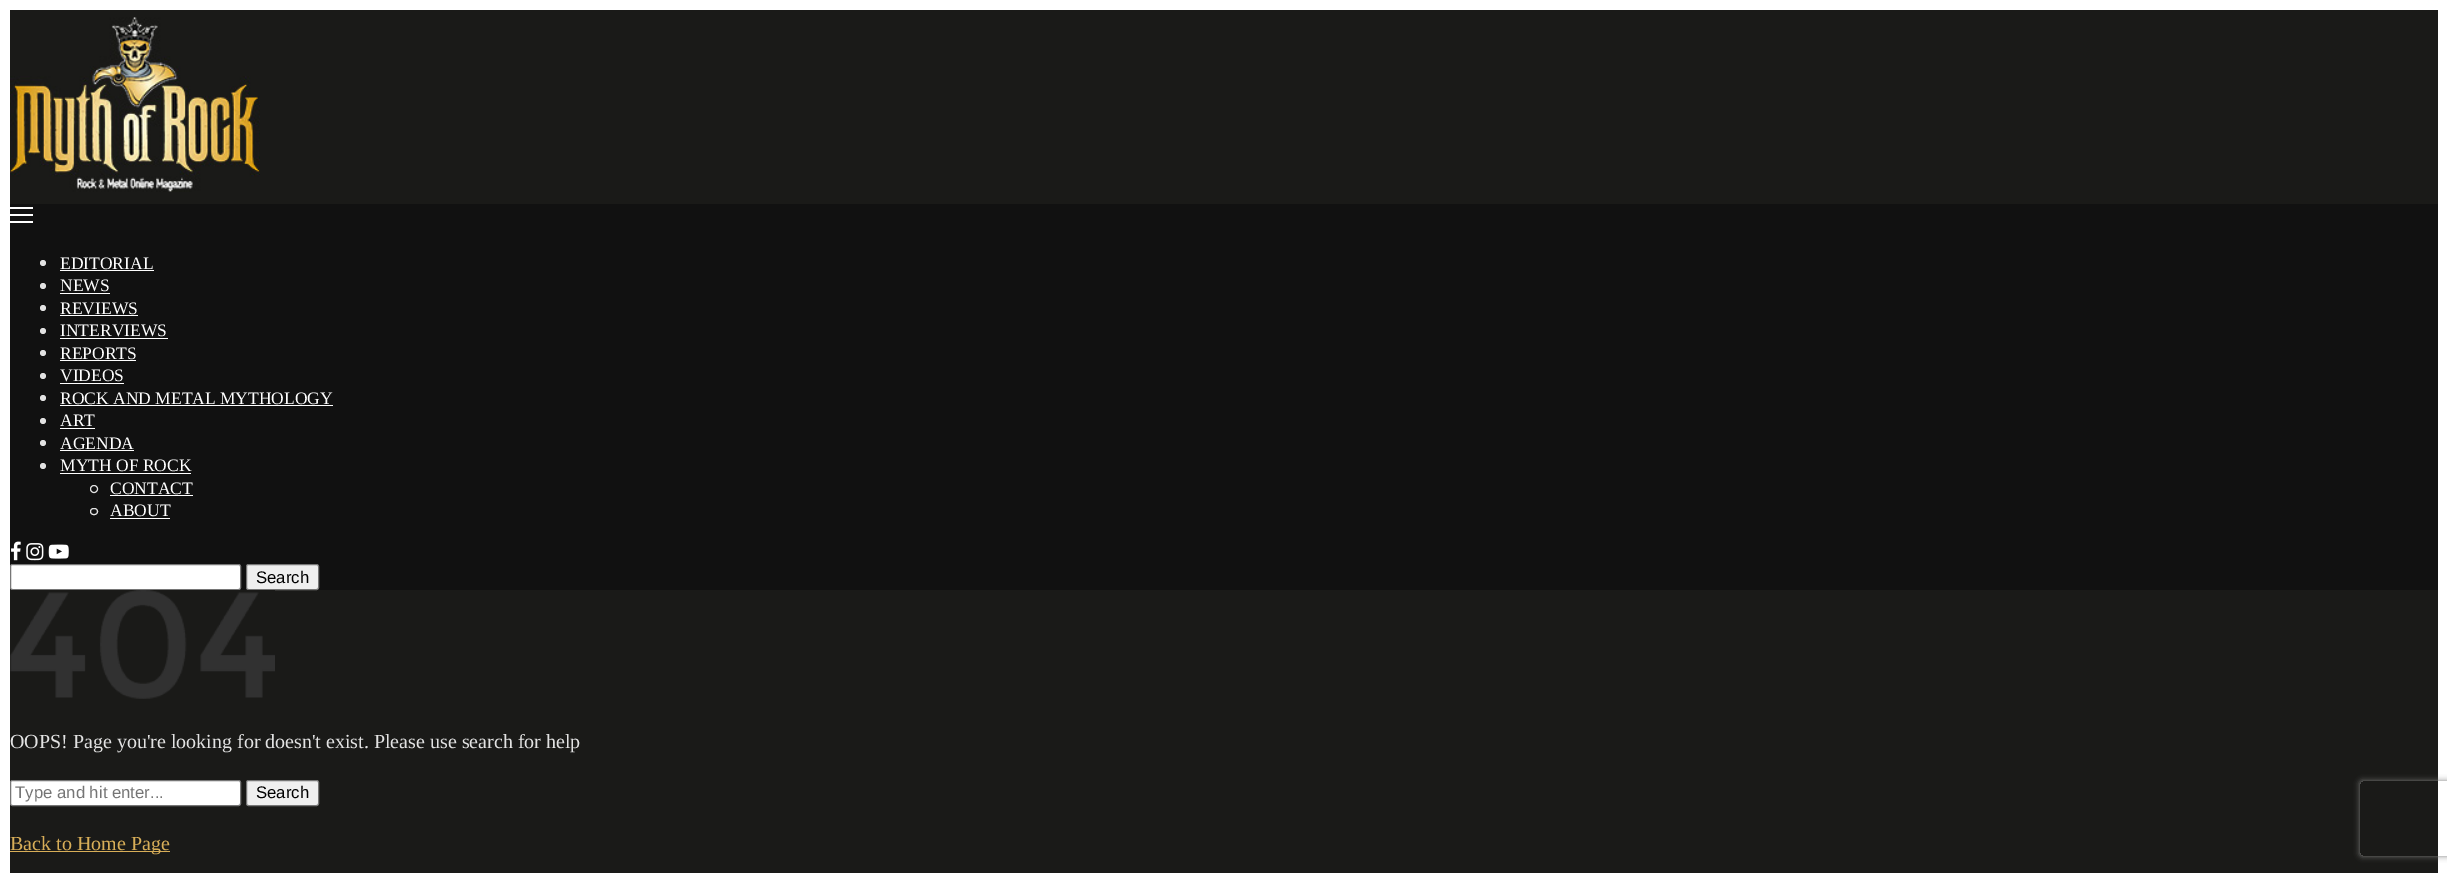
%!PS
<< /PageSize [2447 873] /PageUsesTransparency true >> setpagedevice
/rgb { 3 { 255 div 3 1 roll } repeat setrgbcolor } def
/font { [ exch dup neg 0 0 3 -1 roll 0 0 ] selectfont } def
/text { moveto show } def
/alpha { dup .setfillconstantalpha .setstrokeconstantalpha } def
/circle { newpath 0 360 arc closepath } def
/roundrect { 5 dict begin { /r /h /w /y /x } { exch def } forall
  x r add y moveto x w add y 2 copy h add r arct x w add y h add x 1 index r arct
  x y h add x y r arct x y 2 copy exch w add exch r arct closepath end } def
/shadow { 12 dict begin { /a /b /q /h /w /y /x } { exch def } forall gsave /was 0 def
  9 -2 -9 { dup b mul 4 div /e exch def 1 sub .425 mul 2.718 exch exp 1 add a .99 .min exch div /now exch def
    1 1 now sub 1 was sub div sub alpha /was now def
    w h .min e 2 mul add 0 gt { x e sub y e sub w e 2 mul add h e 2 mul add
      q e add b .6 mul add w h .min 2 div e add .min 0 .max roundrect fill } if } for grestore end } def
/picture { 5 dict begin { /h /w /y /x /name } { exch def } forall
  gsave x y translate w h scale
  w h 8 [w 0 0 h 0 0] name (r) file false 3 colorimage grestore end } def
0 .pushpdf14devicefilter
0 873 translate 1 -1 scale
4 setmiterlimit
255 255 255 rgb
0 0 2447 873 rectfill
26 26 24 rgb
10 10 2428 863 rectfill
(img_01.rgb) 10 17 250 175 picture
17 17 17 rgb
10 204 2428 386 rectfill
255 255 255 rgb
10 207 23 2 rectfill
10 214 23 2 rectfill
10 221 23 2 rectfill
226 226 226 rgb
43 263 3 circle fill
255 255 255 rgb
60 270 94 1 rectfill
226 226 226 rgb
43 286 3 circle fill
255 255 255 rgb
60 293 50 1 rectfill
226 226 226 rgb
43 308 3 circle fill
255 255 255 rgb
60 315 78 1 rectfill
226 226 226 rgb
43 331 3 circle fill
255 255 255 rgb
60 338 108 1 rectfill
226 226 226 rgb
43 353 3 circle fill
255 255 255 rgb
60 360 76 1 rectfill
226 226 226 rgb
43 376 3 circle fill
255 255 255 rgb
60 383 64 1 rectfill
226 226 226 rgb
43 398 3 circle fill
255 255 255 rgb
60 405 273 1 rectfill
226 226 226 rgb
43 421 3 circle fill
255 255 255 rgb
60 428 35 1 rectfill
226 226 226 rgb
43 443 3 circle fill
255 255 255 rgb
60 450 74 1 rectfill
226 226 226 rgb
43 466 3 circle fill
255 255 255 rgb
60 473 131 1 rectfill
226 226 226 rgb
94 489 3.5 circle stroke
255 255 255 rgb
110 495 83 1 rectfill
226 226 226 rgb
90.5 508.5 7 6 3 roundrect stroke
255 255 255 rgb
110 518 60 1 rectfill
(img_02.rgb) 11 541 10 20 picture
(img_03.rgb) 26 543 18 18 picture
(img_04.rgb) 48 544 21 15 picture
10.5 564.5 230 25 2 roundrect gsave fill grestore
118 118 118 rgb
stroke
239 239 239 rgb
246.5 564.5 72 25 2 roundrect gsave fill grestore
118 118 118 rgb
stroke
(img_05.rgb) 10 590 265 109 picture
255 255 255 rgb
10.5 780.5 230 25 2 roundrect gsave fill grestore
118 118 118 rgb
stroke
239 239 239 rgb
246.5 780.5 72 25 2 roundrect gsave fill grestore
118 118 118 rgb
stroke
216 174 88 rgb
10 851 160 1 rectfill
gsave
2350 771 moveto 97 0 rlineto 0 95 rlineto -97 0 rlineto closepath 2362.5 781 moveto 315 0 rlineto 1.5 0 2.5 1 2.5 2.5 rcurveto 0 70 rlineto 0 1.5 -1 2.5 -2.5 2.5 rcurveto -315 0 rlineto -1.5 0 -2.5 -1 -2.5 -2.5 rcurveto 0 -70 rlineto 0 -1.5 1 -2.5 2.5 -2.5 rcurveto closepath eoclip newpath
128 128 128 rgb
2360 781 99 75 2.5 3 1 shadow
grestore
/LiberationSerif-Regular 17.5 font
255 255 255 rgb
(EDITORIAL) 60 269 text
(NEWS) 60 291 text
(REVIEWS) 60 314 text
(INTERVIEWS) 60 336 text
(REPORTS) 60 359 text
(VIDEOS) 60 381 text
(ROCK AND METAL MYTHOLOGY) 60 404 text
(ART) 60 426 text
(AGENDA) 60 449 text
(MYTH OF ROCK) 60 471 text
(CONTACT) 110 494 text
(ABOUT) 110 516 text
/LiberationSans-Regular 16.75 font
0 0 0 rgb
(Search) 256 583 text
/LiberationSerif-Regular 20 font
226 226 226 rgb
(OOPS! Page you're looking for doesn't exist. Please use search for help) 10 748 text
/LiberationSans-Regular 16.75 font
117 117 117 rgb
(Type and hit enter...) 15 798 text
0 0 0 rgb
(Search) 256 798 text
/LiberationSerif-Regular 20 font
216 174 88 rgb
(Back to Home Page) 10 850 text
.poppdf14devicefilter showpage
